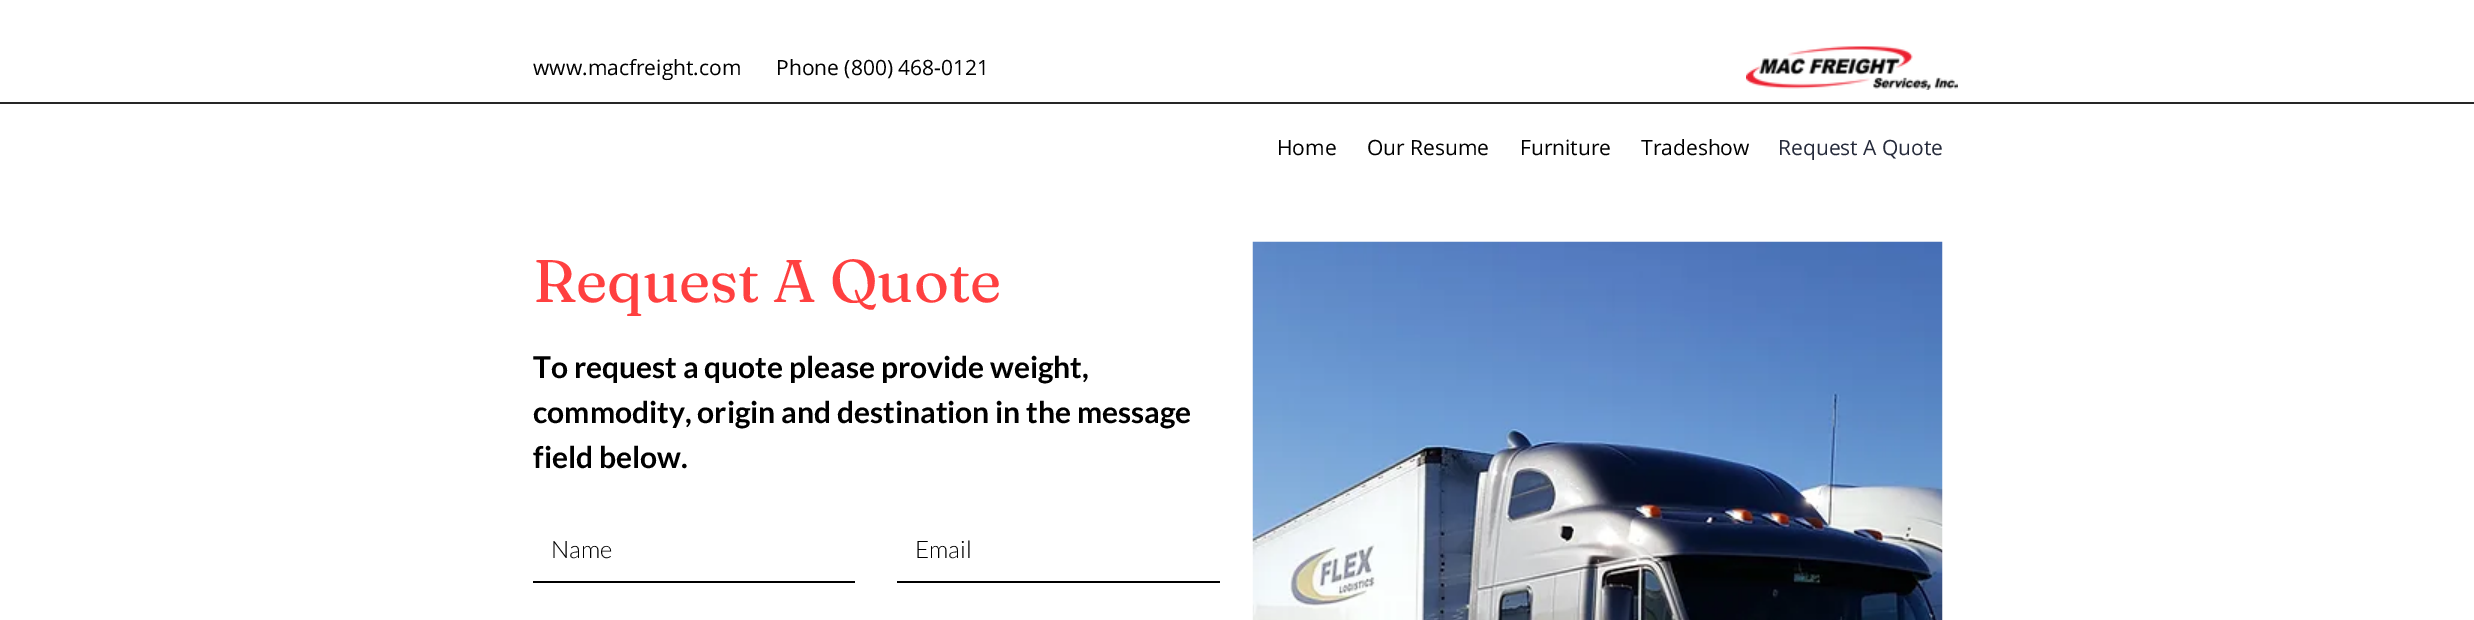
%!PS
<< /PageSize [2474 620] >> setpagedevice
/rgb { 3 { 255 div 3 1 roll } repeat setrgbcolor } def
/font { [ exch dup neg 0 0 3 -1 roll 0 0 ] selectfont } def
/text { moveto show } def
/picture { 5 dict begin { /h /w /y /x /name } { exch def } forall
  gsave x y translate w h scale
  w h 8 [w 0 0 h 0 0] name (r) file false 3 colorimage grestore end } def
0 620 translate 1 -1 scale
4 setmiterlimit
255 255 255 rgb
0 0 2474 620 rectfill
(img_01.rgb) 1746 46 212 44 picture
38 38 38 rgb
0 102 2474 2 rectfill
(img_02.rgb) 1252 241 691 379 picture
0 0 0 rgb
533 581 322 2 rectfill
897 581 323 2 rectfill
/OpenSans-Regular 21 font
(www.macfreight.com) 533 75 text
(Phone \(800\) 468-0121) 776 75 text
(Home) 1277 155 text
(Our Resume) 1367 155 text
(Furniture) 1520 155 text
(Tradeshow) 1641 155 text
38 43 59 rgb
(Request A Quote) 1778 155 text
/Fraunces-Regular 60 font
255 64 64 rgb
(Request A Quote) 533 302 text
/Lato-Bold 30 font
0 0 0 rgb
(To request a quote please provide weight,) 533 378 text
(commodity, origin and destination in the message) 533 423 text
(field below.) 533 468 text
/Lato-Light 24 font
(Name) 551 558 text
(Email) 915 558 text
showpage
